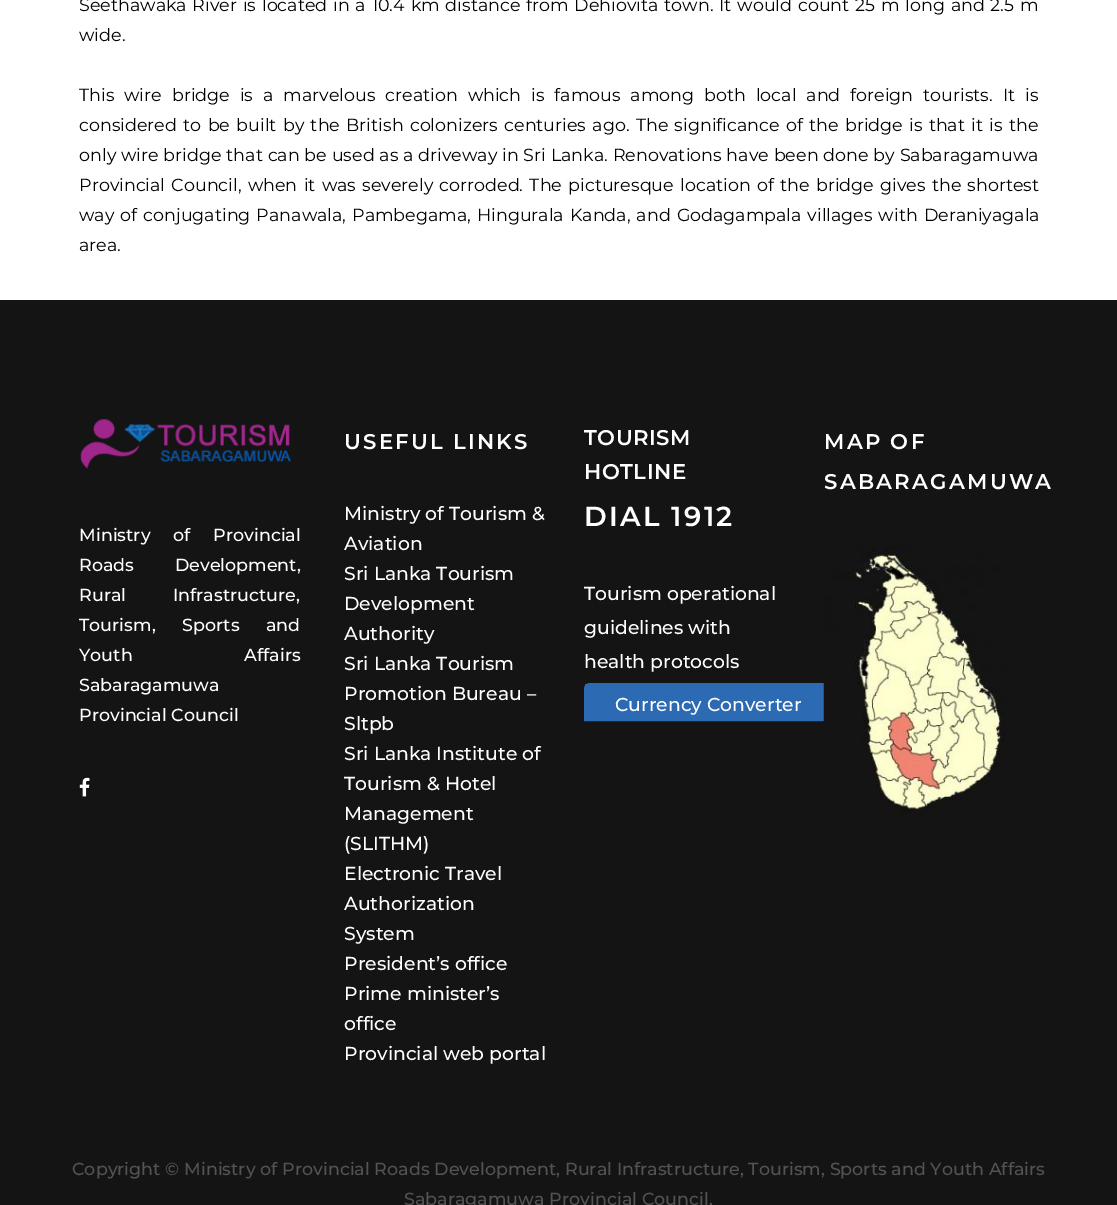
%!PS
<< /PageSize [1117 1205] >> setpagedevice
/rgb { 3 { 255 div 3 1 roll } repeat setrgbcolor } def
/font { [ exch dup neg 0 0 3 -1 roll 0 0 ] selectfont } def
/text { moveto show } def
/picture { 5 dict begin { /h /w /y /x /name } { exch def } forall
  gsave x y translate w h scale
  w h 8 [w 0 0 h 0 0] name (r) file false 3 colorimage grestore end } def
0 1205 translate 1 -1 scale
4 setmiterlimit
255 255 255 rgb
0 0 1117 1205 rectfill
21 20 20 rgb
0 300 1117 905 rectfill
45 106 180 rgb
590 683.5 moveto 238 0 rlineto 3 0 5.5 2.5 5.5 5.5 rcurveto 0 31.5 rlineto -249 0 rlineto 0 -31.5 rlineto 0 -3 2.5 -5.5 5.5 -5.5 rcurveto closepath stroke
585 684 239 36 rectfill
(img_01.rgb) 823 546 183 269 picture
(img_02.rgb) 80 419 211 50 picture
(img_03.rgb) 79 777 11 20 picture
/Montserrat-Regular 17.5 font
0 0 0 rgb
79 11 moveto 1.25 0 32 (Seethawaka River is located in a 10.4 km distance from Dehiovita town. It would count 25 m long and 2.5 m) widthshow
(wide.) 79 41 text
79 101 moveto 5.4 0 32 (This wire bridge is a marvelous creation which is famous among both local and foreign tourists. It is) widthshow
79 131 moveto 1.75 0 32 (considered to be built by the British colonizers centuries ago. The significance of the bridge is that it is the) widthshow
79 161 moveto 0.3 0 32 (only wire bridge that can be used as a driveway in Sri Lanka. Renovations have been done by Sabaragamuwa) widthshow
79 191 moveto 1.7 0 32 (Provincial Council, when it was severely corroded. The picturesque location of the bridge gives the shortest) widthshow
79 221 moveto 1.5 0 32 (way of conjugating Panawala, Pambegama, Hingurala Kanda, and Godagampala villages with Deraniyagala) widthshow
(area.) 79 251 text
/Montserrat-SemiBold 21.25 font
255 255 255 rgb
344 449 moveto 2.25 0 (USEFUL LINKS) ashow
/Montserrat-Medium 18.75 font
(Ministry of Tourism &) 344 520 text
(Aviation) 344 550 text
(Sri Lanka Tourism) 344 580 text
(Development) 344 610 text
(Authority) 344 640 text
(Sri Lanka Tourism) 344 670 text
(Promotion Bureau –) 344 700 text
(Sltpb) 344 730 text
(Sri Lanka Institute of) 344 760 text
(Tourism & Hotel) 344 790 text
(Management) 344 820 text
(\(SLITHM\)) 344 850 text
(Electronic Travel) 344 880 text
(Authorization) 344 910 text
(System) 344 940 text
(President’s office) 344 970 text
(Prime minister’s) 344 1000 text
(office) 344 1030 text
(Provincial web portal) 344 1060 text
/Montserrat-SemiBold 21.25 font
584 445 moveto 0.5 0 (TOURISM) ashow
584 479 moveto 0.5 0 (HOTLINE) ashow
/Montserrat-SemiBold 27.5 font
584 526 moveto 2.25 0 (DIAL 1912) ashow
/Montserrat-Medium 18.75 font
(Tourism operational) 584 600 text
(guidelines with) 584 634 text
(health protocols) 584 668 text
(Currency Converter) 615 711 text
/Montserrat-SemiBold 21.25 font
824 449 moveto 2.25 0 (MAP OF) ashow
824 489 moveto 2.25 0 (SABARAGAMUWA) ashow
/Montserrat-Medium 17.5 font
79 541 moveto 18 0 32 (Ministry of Provincial) widthshow
79 571 moveto 36 0 32 (Roads Development,) widthshow
79 601 moveto 42 0 32 (Rural Infrastructure,) widthshow
79 631 moveto 22 0 32 (Tourism, Sports and) widthshow
79 661 moveto 107 0 32 (Youth Affairs) widthshow
(Sabaragamuwa) 79 691 text
(Provincial Council) 79 721 text
84 83 83 rgb
(Copyright © Ministry of Provincial Roads Development, Rural Infrastructure, Tourism, Sports and Youth Affairs) 72 1175 text
(Sabaragamuwa Provincial Council.) 404 1205 text
showpage
